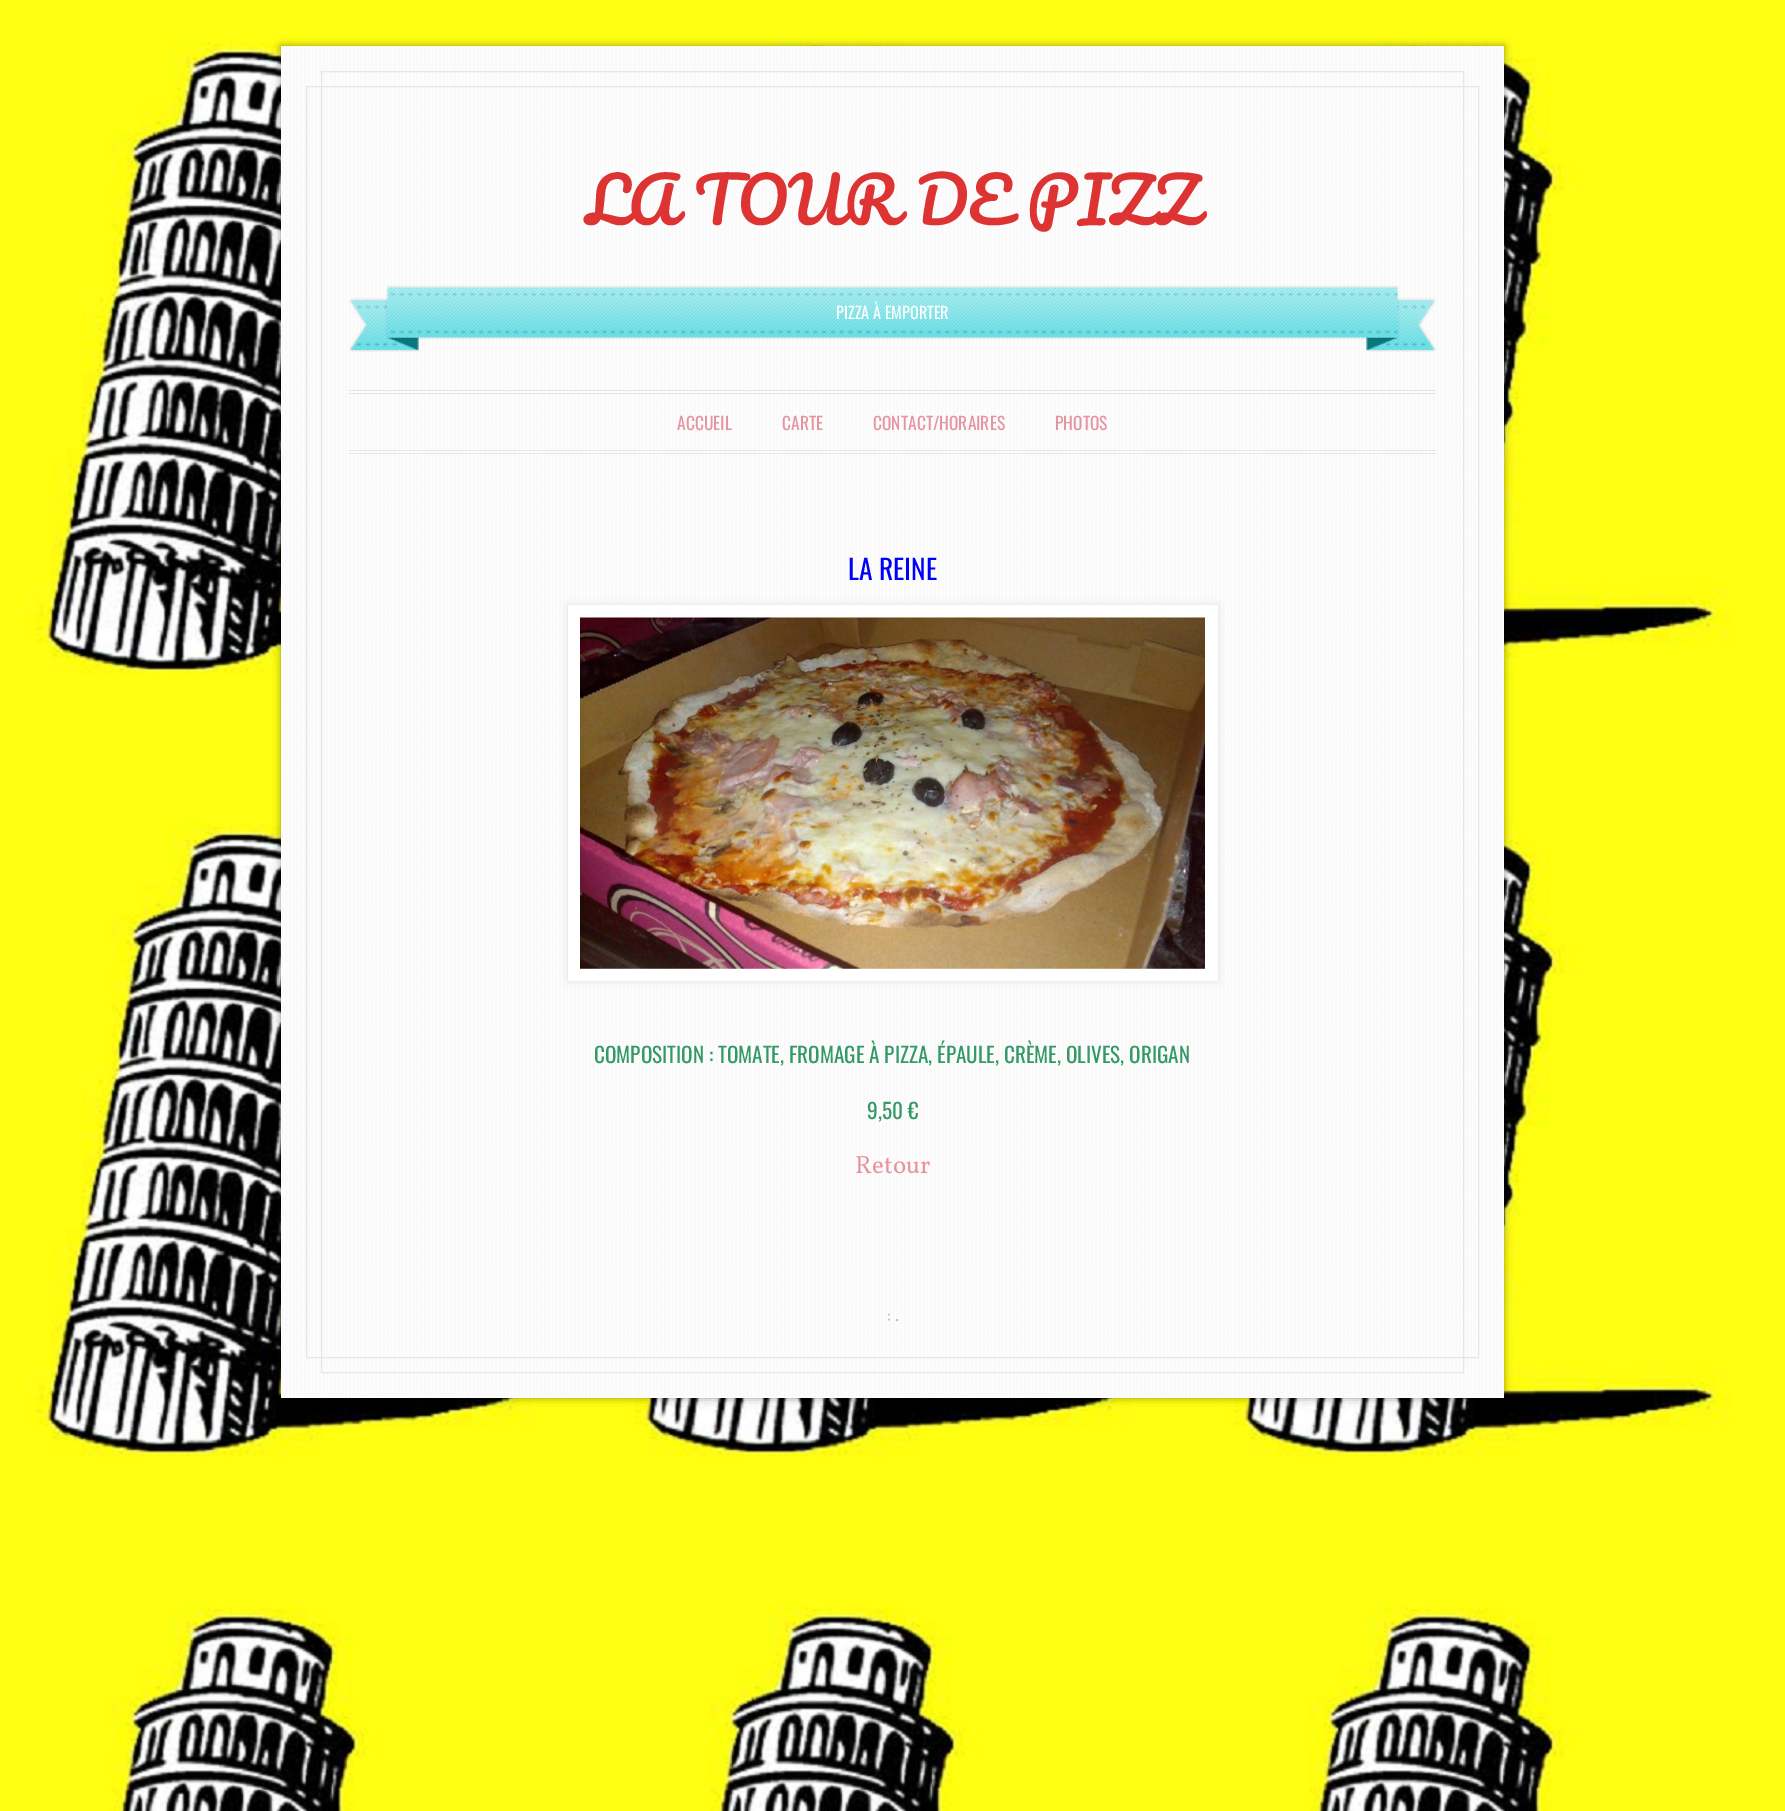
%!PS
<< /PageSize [1785 1811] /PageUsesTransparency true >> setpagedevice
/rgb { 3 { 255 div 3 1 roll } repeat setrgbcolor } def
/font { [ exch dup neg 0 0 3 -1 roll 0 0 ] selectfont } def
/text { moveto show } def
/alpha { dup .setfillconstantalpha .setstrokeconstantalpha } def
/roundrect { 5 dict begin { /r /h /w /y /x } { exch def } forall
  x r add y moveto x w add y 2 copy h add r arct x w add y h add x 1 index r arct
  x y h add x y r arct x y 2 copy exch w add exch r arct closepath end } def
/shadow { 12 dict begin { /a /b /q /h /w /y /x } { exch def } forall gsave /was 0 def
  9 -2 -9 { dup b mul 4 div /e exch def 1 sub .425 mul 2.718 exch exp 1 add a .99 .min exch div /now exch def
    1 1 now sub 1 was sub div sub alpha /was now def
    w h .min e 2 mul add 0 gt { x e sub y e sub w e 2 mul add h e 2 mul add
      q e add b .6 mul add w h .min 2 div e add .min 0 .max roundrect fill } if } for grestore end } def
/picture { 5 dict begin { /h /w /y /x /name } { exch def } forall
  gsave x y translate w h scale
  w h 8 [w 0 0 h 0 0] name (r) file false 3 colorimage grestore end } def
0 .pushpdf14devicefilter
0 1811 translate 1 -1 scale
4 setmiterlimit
255 255 255 rgb
0 0 1785 1811 rectfill
(img_01.rgb) 0 0 1785 1811 picture
0 0 0 rgb
281 46 1223 1352 0 4 0.4 shadow
255 255 255 rgb
281 46 1223 1352 rectfill
(img_02.rgb) 282 46 1221 1351 picture
230 230 230 rgb
306.5 86.5 1172 1271 rectstroke
321.5 71.5 1142 1301 rectstroke
(img_03.rgb) 349 288 70 64 picture
(img_05.rgb) 1366 288 70 64 picture
(img_04.rgb) 387 285 1011 55 picture
349 390 1087 1 rectfill
349 393 1087 1 rectfill
349 450 1087 1 rectfill
349 453 1087 1 rectfill
0 0 0 rgb
568 605 650 376 0 4 0.1 shadow
255 255 255 rgb
568 605 650 376 rectfill
(img_06.rgb) 580 617 625 352 picture
/Pacifico-Regular 62.5 font
221 51 51 rgb
(LA TOUR DE PIZZ) 586 225 text
/Oswald-Regular 16.25 font
255 255 255 rgb
(PIZZA À EMPORTER) 836 319 text
/Oswald-Regular 17.5 font
230 147 162 rgb
(ACCUEIL) 677 430 text
(CARTE) 782 430 text
(CONTACT/HORAIRES) 873 430 text
(PHOTOS) 1055 430 text
/Oswald-Regular 27.5 font
0 0 255 rgb
(LA REINE) 848 580 text
/Oswald-Regular 21.25 font
51 153 102 rgb
(COMPOSITION : TOMATE, FROMAGE À PIZZA, ÉPAULE, CRÈME, OLIVES, ORIGAN) 594 1063 text
(9,50 €) 867 1119 text
/Vollkorn-Regular 25 font
230 147 162 rgb
(Retour) 855 1173 text
/Vollkorn-Regular 17.5 font
169 195 198 rgb
(: .) 887 1321 text
.poppdf14devicefilter showpage
